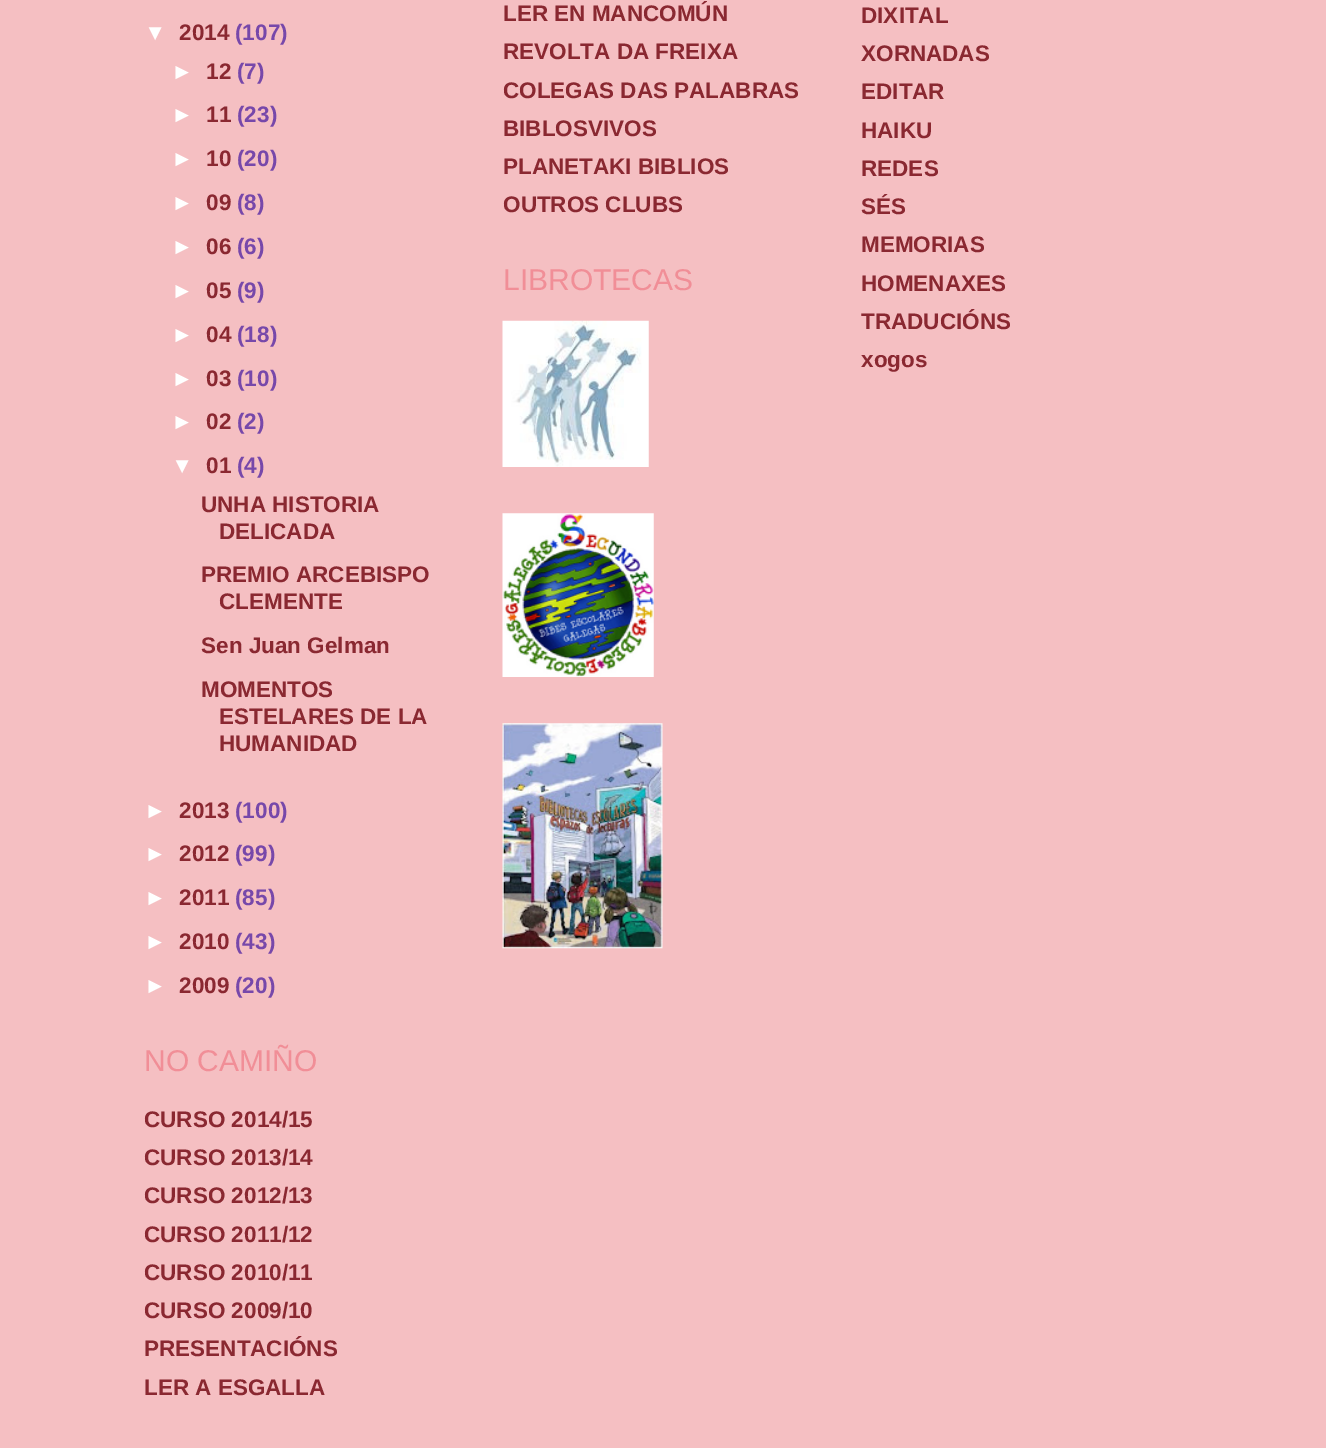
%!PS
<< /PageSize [1326 1448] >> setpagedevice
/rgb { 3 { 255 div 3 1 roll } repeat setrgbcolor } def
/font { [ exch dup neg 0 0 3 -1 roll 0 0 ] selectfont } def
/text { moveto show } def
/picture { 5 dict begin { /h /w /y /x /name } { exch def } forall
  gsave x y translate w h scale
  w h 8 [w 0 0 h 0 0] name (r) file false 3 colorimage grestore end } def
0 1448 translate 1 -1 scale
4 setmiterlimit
245 191 194 rgb
0 0 1326 1448 rectfill
(img_01.rgb) 502 320 147 147 picture
(img_02.rgb) 502 513 152 164 picture
(img_03.rgb) 502 723 161 226 picture
/LiberationSans-Bold 22.5 font
255 255 255 rgb
(▼) 144 40 text
138 40 49 rgb
(2014) 179 40 text
119 72 170 rgb
(\(107\)) 235 40 text
255 255 255 rgb
(►) 171 79 text
138 40 49 rgb
(12) 206 79 text
119 72 170 rgb
(\(7\)) 237 79 text
255 255 255 rgb
(►) 171 122 text
138 40 49 rgb
(11) 206 122 text
119 72 170 rgb
(\(23\)) 237 122 text
255 255 255 rgb
(►) 171 166 text
138 40 49 rgb
(10) 206 166 text
119 72 170 rgb
(\(20\)) 237 166 text
255 255 255 rgb
(►) 171 210 text
138 40 49 rgb
(09) 206 210 text
119 72 170 rgb
(\(8\)) 237 210 text
255 255 255 rgb
(►) 171 254 text
138 40 49 rgb
(06) 206 254 text
119 72 170 rgb
(\(6\)) 237 254 text
255 255 255 rgb
(►) 171 298 text
138 40 49 rgb
(05) 206 298 text
119 72 170 rgb
(\(9\)) 237 298 text
255 255 255 rgb
(►) 171 342 text
138 40 49 rgb
(04) 206 342 text
119 72 170 rgb
(\(18\)) 237 342 text
255 255 255 rgb
(►) 171 386 text
138 40 49 rgb
(03) 206 386 text
119 72 170 rgb
(\(10\)) 237 386 text
255 255 255 rgb
(►) 171 429 text
138 40 49 rgb
(02) 206 429 text
119 72 170 rgb
(\(2\)) 237 429 text
255 255 255 rgb
(▼) 171 473 text
138 40 49 rgb
(01) 206 473 text
119 72 170 rgb
(\(4\)) 237 473 text
138 40 49 rgb
(UNHA HISTORIA) 201 512 text
(DELICADA) 219 539 text
(PREMIO ARCEBISPO) 201 582 text
(CLEMENTE) 219 609 text
(Sen Juan Gelman) 201 653 text
(MOMENTOS) 201 697 text
(ESTELARES DE LA) 219 724 text
(HUMANIDAD) 219 751 text
255 255 255 rgb
(►) 144 818 text
138 40 49 rgb
(2013) 179 818 text
119 72 170 rgb
(\(100\)) 235 818 text
255 255 255 rgb
(►) 144 861 text
138 40 49 rgb
(2012) 179 861 text
119 72 170 rgb
(\(99\)) 235 861 text
255 255 255 rgb
(►) 144 905 text
138 40 49 rgb
(2011) 179 905 text
119 72 170 rgb
(\(85\)) 235 905 text
255 255 255 rgb
(►) 144 949 text
138 40 49 rgb
(2010) 179 949 text
119 72 170 rgb
(\(43\)) 235 949 text
255 255 255 rgb
(►) 144 993 text
138 40 49 rgb
(2009) 179 993 text
119 72 170 rgb
(\(20\)) 235 993 text
/LiberationSans-Regular 30 font
241 142 151 rgb
(NO CAMIÑO) 144 1071 text
/LiberationSans-Bold 22.5 font
138 40 49 rgb
(CURSO 2014/15) 144 1127 text
(CURSO 2013/14) 144 1165 text
(CURSO 2012/13) 144 1203 text
(CURSO 2011/12) 144 1242 text
(CURSO 2010/11) 144 1280 text
(CURSO 2009/10) 144 1318 text
(PRESENTACIÓNS) 144 1356 text
(LER A ESGALLA) 144 1395 text
(LER EN MANCOMÚN) 503 21 text
(REVOLTA DA FREIXA) 503 59 text
(COLEGAS DAS PALABRAS) 503 98 text
(BIBLOSVIVOS) 503 136 text
(PLANETAKI BIBLIOS) 503 174 text
(OUTROS CLUBS) 503 212 text
/LiberationSans-Regular 30 font
241 142 151 rgb
(LIBROTECAS) 503 290 text
/LiberationSans-Bold 22.5 font
138 40 49 rgb
(DIXITAL) 861 23 text
(XORNADAS) 861 61 text
(EDITAR) 861 99 text
(HAIKU) 861 138 text
(REDES) 861 176 text
(SÉS) 861 214 text
(MEMORIAS) 861 252 text
(HOMENAXES) 861 291 text
(TRADUCIÓNS) 861 329 text
(xogos) 861 367 text
showpage
